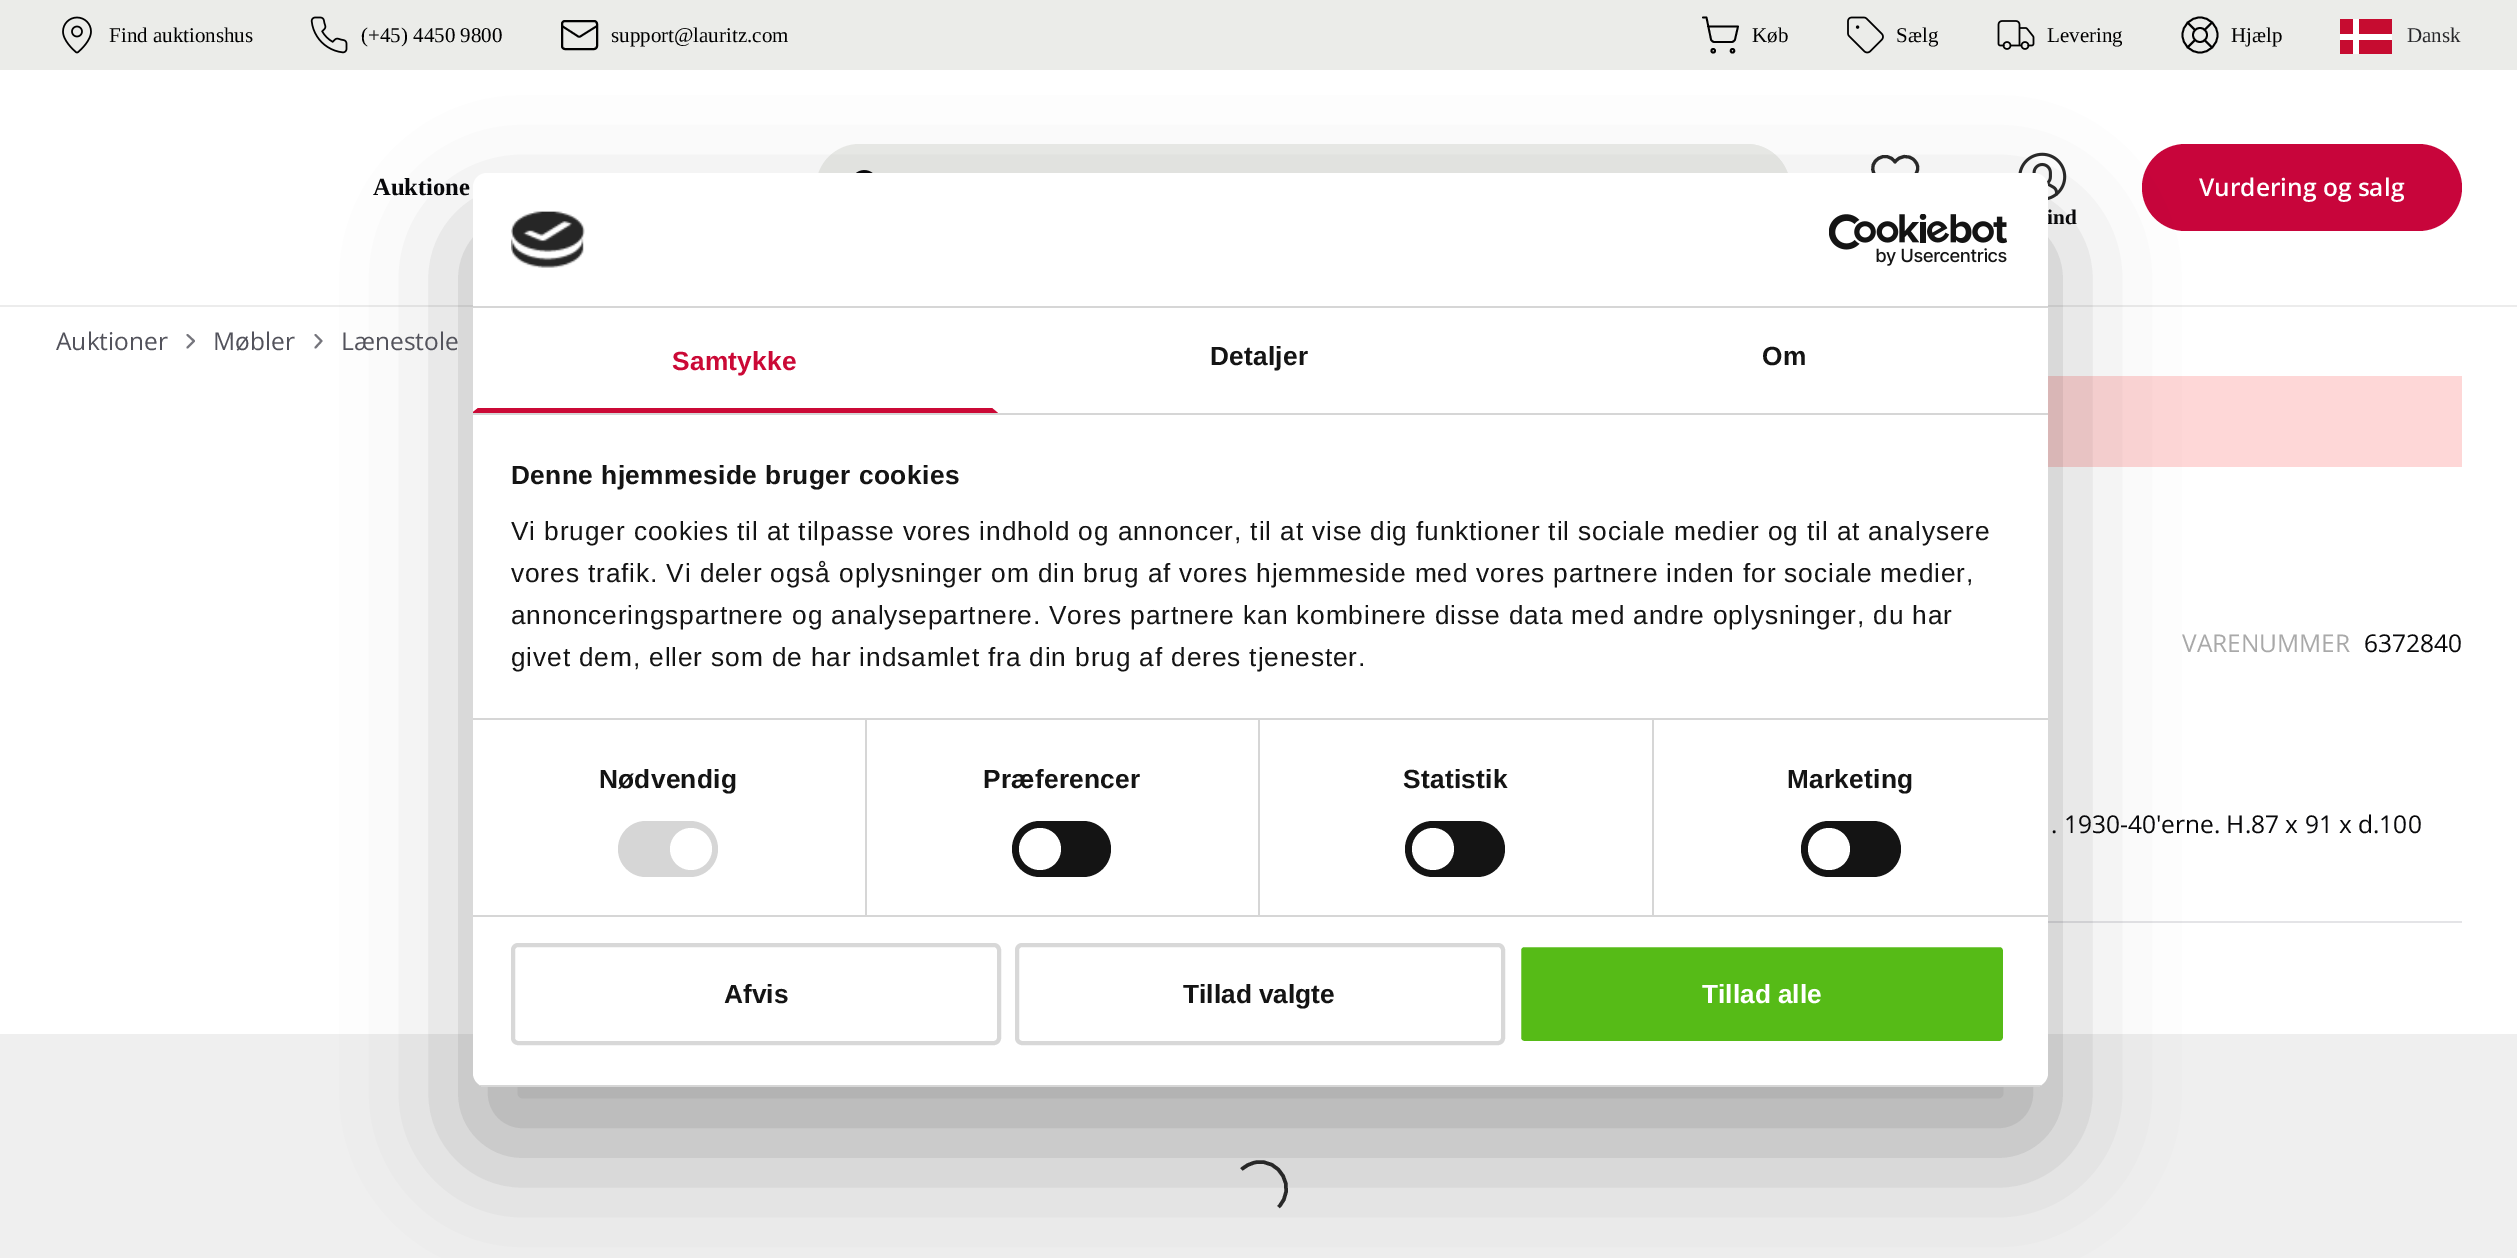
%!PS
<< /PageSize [2517 1258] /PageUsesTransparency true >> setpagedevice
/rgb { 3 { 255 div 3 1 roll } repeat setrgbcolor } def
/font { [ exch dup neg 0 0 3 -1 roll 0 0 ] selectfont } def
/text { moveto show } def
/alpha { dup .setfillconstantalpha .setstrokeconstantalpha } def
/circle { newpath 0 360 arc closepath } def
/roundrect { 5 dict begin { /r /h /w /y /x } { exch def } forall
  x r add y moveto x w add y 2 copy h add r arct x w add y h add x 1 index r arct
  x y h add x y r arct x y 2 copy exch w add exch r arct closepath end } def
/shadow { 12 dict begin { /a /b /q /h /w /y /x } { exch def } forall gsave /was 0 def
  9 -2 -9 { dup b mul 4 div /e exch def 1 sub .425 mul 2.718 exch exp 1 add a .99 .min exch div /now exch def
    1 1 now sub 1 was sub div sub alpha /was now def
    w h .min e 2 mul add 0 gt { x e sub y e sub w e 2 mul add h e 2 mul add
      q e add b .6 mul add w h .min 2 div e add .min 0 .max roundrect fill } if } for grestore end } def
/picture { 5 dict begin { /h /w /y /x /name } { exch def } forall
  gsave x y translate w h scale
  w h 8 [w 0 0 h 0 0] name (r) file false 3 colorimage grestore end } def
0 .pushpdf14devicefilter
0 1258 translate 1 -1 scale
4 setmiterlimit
255 255 255 rgb
0 0 2517 1258 rectfill
235 236 233 rgb
0 0 2517 70 rectfill
(img_01.rgb) 62 16 30 38 picture
(img_02.rgb) 310 16 38 38 picture
0 0 0 rgb
2 setlinewidth
562 21 35 28 3 roundrect stroke
1.8 setlinewidth
1 setlinecap
1 setlinejoin
597 26 moveto -16 10 rlineto -1 1 -2.5 1 -3.5 0 rcurveto -15.5 -10 rlineto stroke
0 setlinecap
0 setlinejoin
1713.2 50.8 1.8 circle stroke
1732.5 50.8 1.8 circle stroke
1 setlinecap
1 setlinejoin
1703 17.5 moveto 3.5 0 rlineto 4.5 22 rlineto 0.5 1.5 2 2.5 3.5 2.5 rcurveto 17 0 rlineto 1.5 0 3 -1 3.5 -2.5 rcurveto 3 -13 rlineto -30 0 rlineto stroke
(img_03.rgb) 1847 16 37 38 picture
(img_04.rgb) 1997 20 38 30 picture
0 setlinecap
0 setlinejoin
2200 35 17.5 circle stroke
1 setlinecap
1 setlinejoin
2187.5 22.5 moveto 7.5 7.5 rlineto 2204.5 30 moveto 7.5 -7.5 rlineto 2204.5 40 moveto 7.5 7.5 rlineto 2195 40 moveto -7.5 7.5 rlineto stroke
0 setlinecap
0 setlinejoin
2200 35 7 circle stroke
198 12 48 rgb
2340 19 52 35 rectfill
255 255 255 rgb
2359 19 moveto -6 0 rlineto 0 15 rlineto -13 0 rlineto 0 6 rlineto 13 0 rlineto 0 14 rlineto 6 0 rlineto 0 -14 rlineto 33 0 rlineto 0 -6 rlineto -33 0 rlineto closepath fill
236 236 236 rgb
0 305 2517 2 rectfill
235 236 233 rgb
816 144 974 87 43.5 roundrect fill
859 144 931 87 43.5 roundrect fill
(img_05.rgb) 856 170 17 3 picture
43 43 43 rgb
3.1 setlinewidth
1 setlinecap
1 setlinejoin
1914 160 moveto -5.5 -5.5 -14.5 -4.5 -19 2 rcurveto -8.5 -13 -28.5 -1 -20.5 12.5 rcurveto 20.5 21.5 rlineto 13 -12.5 rlineto 6 -6.5 15 -14.5 6 -23.5 rcurveto closepath stroke
200 5 59 rgb
2142 144 320 87 43.5 roundrect fill
(img_06.rgb) 2018 152 49 48 picture
117 117 124 rgb
2 setlinewidth
187.5 347.5 moveto 6.5 -6.5 rlineto -6.5 -6 rlineto stroke
315.5 347.5 moveto 6 -6.5 rlineto -6 -6 rlineto stroke
254 215 215 rgb
2048 376 414 91 rectfill
228 228 231 rgb
2048 921 414 2 rectfill
239 239 239 rgb
0 1034 2517 224 rectfill
43 43 43 rgb
3.5 setlinewidth
0 setlinecap
0 setlinejoin
1241.5 1169.5 moveto 3.5 -3.5 8.5 -6 13.5 -7 rcurveto 25 -5 42 26 23.5 44.5 rcurveto stroke
0 0 0 rgb
473 229 1575 914 14 59.5 0.3 shadow
/LiberationSerif-Regular 21 font
(Find auktionshus) 109 42 text
(\(+45\) 4450 9800) 361 42 text
(support@lauritz.com) 611 42 text
(Køb) 1752 42 text
(Sælg) 1896 42 text
(Levering) 2047 42 text
(Hjælp) 2231 42 text
39 39 42 rgb
(Dansk) 2407 42 text
/LiberationSerif-Bold 24.5 font
9 9 11 rgb
(Auktione) 373 195 text
/OpenSans-SemiBold 24.5 font
255 255 255 rgb
(Vurdering og salg) 2199 196 text
/LiberationSerif-Bold 21 font
9 9 11 rgb
(ind) 2047 224 text
/OpenSans-Regular 24.5 font
82 82 91 rgb
(Auktioner) 56 350 text
(Møbler) 213 350 text
(Lænestole) 341 350 text
169 169 169 rgb
(VARENUMMER) 2182 652 text
9 9 11 rgb
(6372840) 2364 652 text
(. 1930-40'erne. H.87 x 91 x d.100) 2051 833 text
255 255 255 rgb
473 173 1575 914 14 roundrect fill
214 214 214 rgb
473 306 1575 2 rectfill
(img_07.rgb) 511 211 74 57 picture
(img_08.rgb) 1829 214 178 52 picture
473 413 1575 2 rectfill
203 9 54 rgb
998 413 moveto -525 0 rlineto 0 -1 rlineto 5 -4 rlineto 514 0 rlineto closepath fill
/LiberationSans-Bold 26.25 font
672 370 moveto 0.25 0 (Samtykke) ashow
20 20 20 rgb
1210 365 moveto 0.25 0 (Detaljer) ashow
1762 365 moveto 0.25 0 (Om) ashow
511 484 moveto 0.45 0 (Denne hjemmeside bruger cookies) ashow
/LiberationSans-Regular 26.25 font
511 540 moveto 0.88 0 (Vi bruger cookies til at tilpasse vores indhold og annoncer, til at vise dig funktioner til sociale medier og til at analysere) ashow
511 582 moveto 0.88 0 (vores trafik. Vi deler også oplysninger om din brug af vores hjemmeside med vores partnere inden for sociale medier,) ashow
511 624 moveto 0.88 0 (annonceringspartnere og analysepartnere. Vores partnere kan kombinere disse data med andre oplysninger, du har) ashow
511 666 moveto 0.88 0 (givet dem, eller som de har indsamlet fra din brug af deres tjenester.) ashow
214 214 214 rgb
473 915 1575 2 rectfill
865 719 2 196 rectfill
/LiberationSans-Bold 26.25 font
20 20 20 rgb
599 788 moveto 0.25 0 (Nødvendig) ashow
214 214 214 rgb
618 821 100 56 28 roundrect fill
255 255 255 rgb
691 849 21 circle fill
214 214 214 rgb
1258 719 2 196 rectfill
20 20 20 rgb
983 788 moveto 0.25 0 (Præferencer) ashow
1012 821 99 56 28 roundrect fill
255 255 255 rgb
1040 849 21 circle fill
214 214 214 rgb
1652 719 2 196 rectfill
473 718 1575 2 rectfill
20 20 20 rgb
1403 788 moveto 0.25 0 (Statistik) ashow
1405 821 100 56 28 roundrect fill
255 255 255 rgb
1433 849 21 circle fill
20 20 20 rgb
1787 788 moveto 0.25 0 (Marketing) ashow
1801 821 100 56 28 roundrect fill
255 255 255 rgb
1829 849 21 circle fill
gsave
473 173 1575 914 14 roundrect clip newpath
214 214 214 rgb
473 1085 1575 2 rectfill
grestore
216 216 216 rgb
4 setlinewidth
513 945 486 98 5 roundrect stroke
20 20 20 rgb
(Afvis) 724 1003 text
216 216 216 rgb
1017 945 486 98 5 roundrect stroke
20 20 20 rgb
(Tillad valgte) 1183 1003 text
86 187 23 rgb
1519 945 486 98 5 roundrect gsave fill grestore
255 255 255 rgb
stroke
(Tillad alle) 1702 1003 text
.poppdf14devicefilter showpage
